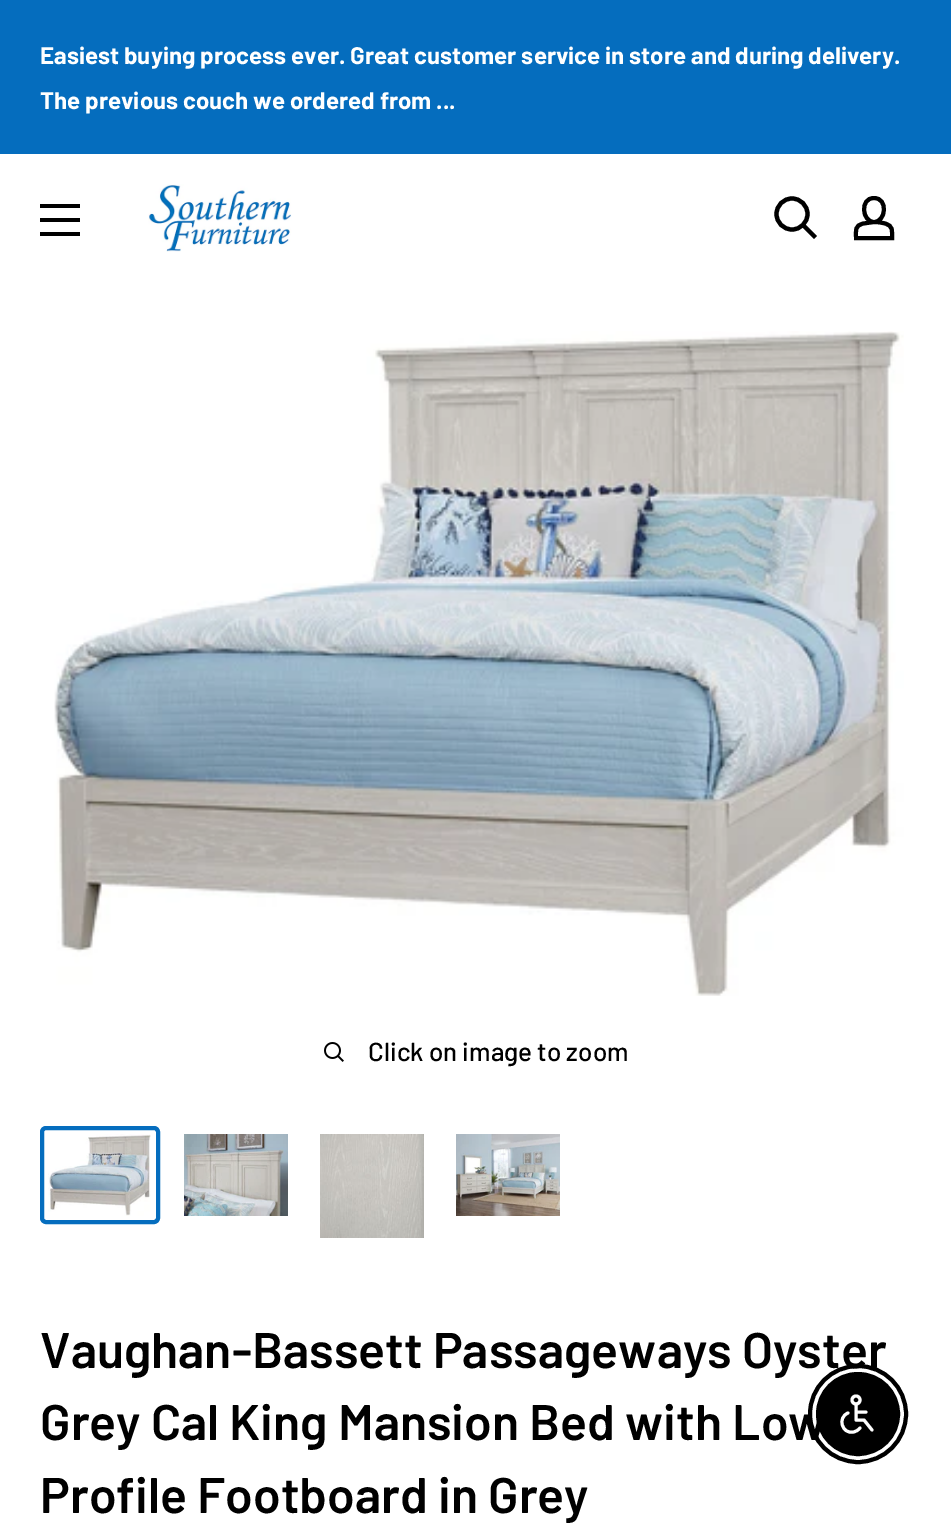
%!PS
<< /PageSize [951 1528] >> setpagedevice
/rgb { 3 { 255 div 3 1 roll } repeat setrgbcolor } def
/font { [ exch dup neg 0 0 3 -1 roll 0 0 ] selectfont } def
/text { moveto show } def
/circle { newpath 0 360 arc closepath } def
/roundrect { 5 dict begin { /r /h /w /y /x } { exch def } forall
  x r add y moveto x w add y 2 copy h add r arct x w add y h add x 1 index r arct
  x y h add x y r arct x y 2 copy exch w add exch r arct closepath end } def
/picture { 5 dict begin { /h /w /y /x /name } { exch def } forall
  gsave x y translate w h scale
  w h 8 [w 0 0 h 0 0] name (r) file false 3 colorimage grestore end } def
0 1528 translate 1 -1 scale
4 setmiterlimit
255 255 255 rgb
0 0 951 1528 rectfill
5 109 190 rgb
0 0 951 154 rectfill
0 0 0 rgb
40 232 moveto 40 0 rlineto 0 4 rlineto -40 0 rlineto closepath 40 204 moveto 40 0 rlineto 0 4 rlineto -40 0 rlineto closepath 40 218 moveto 40 0 rlineto 0 4 rlineto -40 0 rlineto closepath eofill
(img_01.rgb) 148 184 144 68 picture
4.2 setlinewidth
2 setlinecap
814 236 moveto -10.5 -10.5 rlineto stroke
0 setlinecap
792 214 15.5 circle stroke
4 setlinewidth
874 222 moveto 4 0 7.5 0.5 11 1.5 rcurveto 8.5 2.5 7 7 7 14.5 rcurveto -36 0 rlineto 0 -8 -1.5 -12.5 7.5 -14.5 rcurveto closepath 874 222 moveto -12 0 -14.5 -24 0 -24 rcurveto 14.5 0 12 24 0 24 rcurveto closepath stroke
(img_02.rgb) 54 331 850 665 picture
(img_03.rgb) 324 1042 20 20 picture
5 109 190 rgb
42 1128 116 94 4 roundrect stroke
(img_04.rgb) 48 1134 103 82 picture
(img_05.rgb) 184 1134 104 82 picture
(img_06.rgb) 320 1134 104 104 picture
(img_07.rgb) 456 1134 104 82 picture
0 0 0 rgb
858 1414 48 circle stroke
858 1414 41 circle gsave fill grestore
2 setlinewidth
stroke
255 255 255 rgb
3 setlinewidth
856 1400 4 circle stroke
1 setlinecap
1 setlinejoin
856 1404 moveto 0 16 rlineto 8 0 rlineto 8 10 rlineto 856 1412 moveto 10 0 rlineto 848 1413 moveto -11 4.5 -6 21.5 5.5 19 rcurveto 2.5 -0.5 5 -2 6.5 -4 rcurveto stroke
/Barlow-Bold 24 font
(Easiest buying process ever. Great customer service in store and during delivery.) 40 64 text
(The previous couch we ordered from ...) 40 109 text
/Barlow-Medium 26 font
0 0 0 rgb
(Click on image to zoom) 368 1061 text
/Barlow-SemiBold 50 font
(Vaughan-Bassett Passageways Oyster) 40 1368 text
(Grey Cal King Mansion Bed with Low) 40 1440 text
(Profile Footboard in Grey) 40 1513 text
showpage
